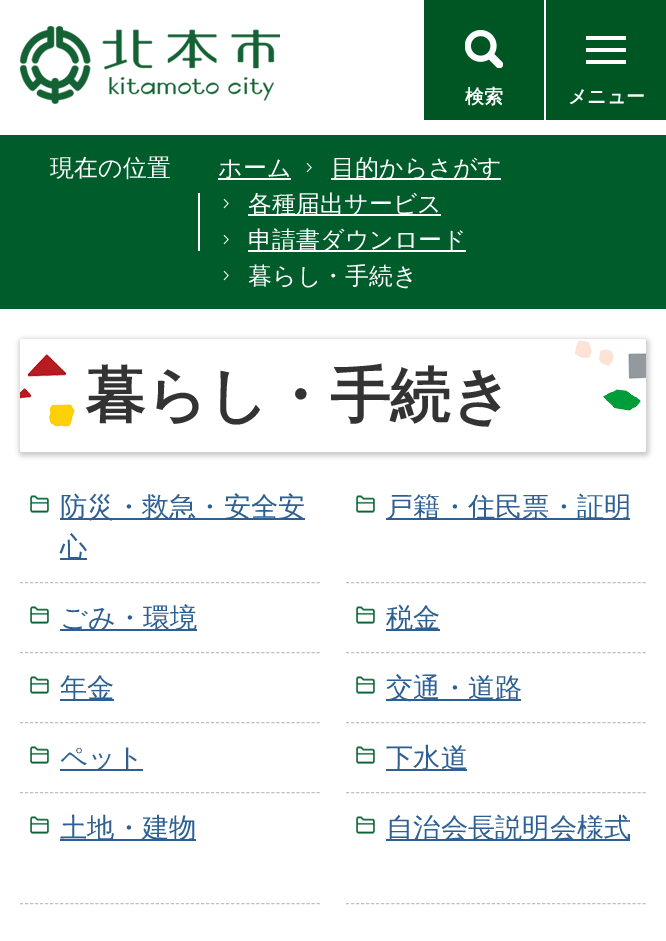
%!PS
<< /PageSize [666 941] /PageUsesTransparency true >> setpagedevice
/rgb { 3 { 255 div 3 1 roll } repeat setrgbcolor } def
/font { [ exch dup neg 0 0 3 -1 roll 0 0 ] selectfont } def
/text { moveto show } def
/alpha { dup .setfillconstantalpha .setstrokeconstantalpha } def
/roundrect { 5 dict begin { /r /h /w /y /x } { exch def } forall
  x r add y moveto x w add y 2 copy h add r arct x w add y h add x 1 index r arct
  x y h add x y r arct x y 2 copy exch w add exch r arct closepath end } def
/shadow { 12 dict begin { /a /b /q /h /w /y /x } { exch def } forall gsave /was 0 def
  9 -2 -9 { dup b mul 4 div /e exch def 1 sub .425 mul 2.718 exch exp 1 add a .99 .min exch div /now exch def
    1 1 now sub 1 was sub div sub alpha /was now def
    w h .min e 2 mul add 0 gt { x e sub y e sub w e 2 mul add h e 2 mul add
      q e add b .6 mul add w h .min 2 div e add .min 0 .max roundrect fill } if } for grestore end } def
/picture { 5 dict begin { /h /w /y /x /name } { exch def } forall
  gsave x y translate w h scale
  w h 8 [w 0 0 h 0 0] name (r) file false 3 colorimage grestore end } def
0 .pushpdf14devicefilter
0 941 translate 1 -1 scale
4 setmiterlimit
255 255 255 rgb
0 0 666 941 rectfill
(img_01.rgb) 20 26 260 78 picture
0 86 34 rgb
424 0 120 120 rectfill
(img_02.rgb) 465 30 38 39 picture
546 0 120 120 rectfill
(img_03.rgb) 586 36 40 28 picture
0 92 43 rgb
0 135 666 174 rectfill
255 255 255 rgb
198 193 2 58 rectfill
218 178 73 2 rectfill
(img_04.rgb) 306 162 6 11 picture
331 178 170 2 rectfill
(img_04.rgb) 223 198 6 11 picture
248 214 193 2 rectfill
(img_04.rgb) 223 234 6 11 picture
248 250 218 2 rectfill
(img_04.rgb) 223 270 6 11 picture
0 0 0 rgb
19 339 630 117 4 2.5 0.2 shadow
255 255 255 rgb
20 339 626 113 2 roundrect fill
(img_05.rgb) 20 340 626 87 picture
(img_06.rgb) 30 495 19 18 picture
191 191 191 rgb
[3 2.03] 0 setdash
20 582.5 moveto 300 0 rlineto stroke
45 95 146 rgb
60 518 245 2 rectfill
60 558 27 2 rectfill
(img_06.rgb) 356 495 19 18 picture
191 191 191 rgb
346 582.5 moveto 300 0 rlineto stroke
45 95 146 rgb
386 518 244 2 rectfill
(img_06.rgb) 30 606 19 18 picture
191 191 191 rgb
20 652.5 moveto 300 0 rlineto stroke
45 95 146 rgb
60 629 137 2 rectfill
(img_06.rgb) 356 606 19 18 picture
191 191 191 rgb
346 652.5 moveto 300 0 rlineto stroke
45 95 146 rgb
386 629 54 2 rectfill
(img_06.rgb) 30 676 19 18 picture
191 191 191 rgb
20 722.5 moveto 300 0 rlineto stroke
45 95 146 rgb
60 699 54 2 rectfill
(img_06.rgb) 356 676 19 18 picture
191 191 191 rgb
346 722.5 moveto 300 0 rlineto stroke
45 95 146 rgb
386 699 135 2 rectfill
(img_06.rgb) 30 746 19 18 picture
191 191 191 rgb
20 792.5 moveto 300 0 rlineto stroke
45 95 146 rgb
60 769 83 2 rectfill
(img_06.rgb) 356 746 19 18 picture
191 191 191 rgb
346 792.5 moveto 300 0 rlineto stroke
45 95 146 rgb
386 769 81 2 rectfill
(img_06.rgb) 30 816 19 18 picture
191 191 191 rgb
20 903.5 moveto 300 0 rlineto stroke
45 95 146 rgb
60 839 136 2 rectfill
(img_06.rgb) 356 816 19 18 picture
191 191 191 rgb
346 903.5 moveto 300 0 rlineto stroke
45 95 146 rgb
386 839 244 2 rectfill
/WenQuanYiZenHei-Bold 19 font
255 255 255 rgb
(検索) 465 103 text
(メニュー) 568 103 text
/WenQuanYiZenHei-Medium 24 font
(現在の位置) 50 176 text
(ホーム) 218 176 text
(目的からさがす) 331 176 text
(各種届出サービス) 248 212 text
(申請書ダウンロード) 248 248 text
(暮らし・手続き) 248 284 text
/WenQuanYiZenHei-Bold 60.5 font
51 51 51 rgb
(暮らし・手続き) 85 416 text
/WenQuanYiZenHei-Medium 27.25 font
45 95 146 rgb
(防災・救急・安全安) 60 516 text
(心) 60 556 text
(戸籍・住民票・証明) 386 516 text
(ごみ・環境) 60 627 text
(税金) 386 627 text
(年金) 60 697 text
(交通・道路) 386 697 text
(ペット) 60 767 text
(下水道) 386 767 text
(土地・建物) 60 837 text
(自治会長説明会様式) 386 837 text
.poppdf14devicefilter showpage
